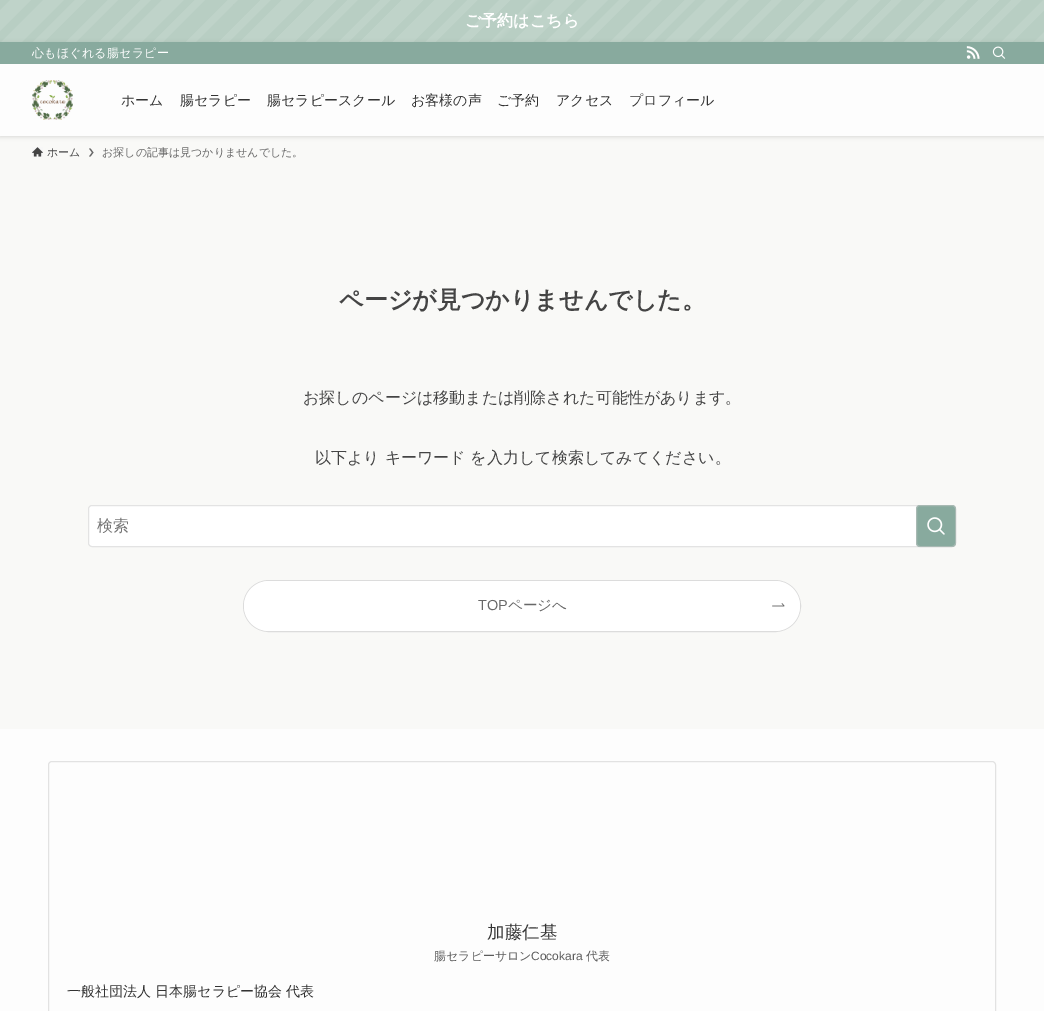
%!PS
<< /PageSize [1044 1011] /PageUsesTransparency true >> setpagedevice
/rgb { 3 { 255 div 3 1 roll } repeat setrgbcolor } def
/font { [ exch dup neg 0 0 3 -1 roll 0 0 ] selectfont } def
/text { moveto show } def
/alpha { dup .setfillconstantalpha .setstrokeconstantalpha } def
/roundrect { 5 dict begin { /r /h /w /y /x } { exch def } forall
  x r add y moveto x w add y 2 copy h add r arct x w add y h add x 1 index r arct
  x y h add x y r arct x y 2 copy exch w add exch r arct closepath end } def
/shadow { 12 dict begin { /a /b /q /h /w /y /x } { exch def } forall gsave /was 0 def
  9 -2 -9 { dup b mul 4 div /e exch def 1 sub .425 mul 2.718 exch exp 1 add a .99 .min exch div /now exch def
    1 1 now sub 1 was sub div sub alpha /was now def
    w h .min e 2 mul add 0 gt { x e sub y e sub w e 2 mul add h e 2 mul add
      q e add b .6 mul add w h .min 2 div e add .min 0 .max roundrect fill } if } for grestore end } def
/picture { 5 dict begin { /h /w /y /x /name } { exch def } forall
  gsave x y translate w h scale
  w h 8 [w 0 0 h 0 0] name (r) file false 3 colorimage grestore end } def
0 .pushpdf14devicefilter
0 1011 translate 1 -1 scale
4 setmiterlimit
249 249 247 rgb
0 0 1044 1011 rectfill
gsave 0 0 moveto 1044 0 rlineto 0 42 rlineto -1044 0 rlineto closepath clip newpath
<< /ShadingType 2 /ColorSpace /DeviceRGB /Coords [794 293 250 -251] /Extend [true true] /Function << /FunctionType 3 /Domain [0 1] /Functions [<< /FunctionType 2 /Domain [0 1] /C0 [0.749 0.827 0.788] /C1 [0.749 0.827 0.788] /N 1 >> << /FunctionType 2 /Domain [0 1] /C0 [0.722 0.808 0.765] /C1 [0.722 0.808 0.765] /N 1 >> << /FunctionType 2 /Domain [0 1] /C0 [0.722 0.808 0.765] /C1 [0.722 0.808 0.765] /N 1 >> << /FunctionType 2 /Domain [0 1] /C0 [0.749 0.827 0.788] /C1 [0.749 0.827 0.788] /N 1 >> << /FunctionType 2 /Domain [0 1] /C0 [0.722 0.808 0.765] /C1 [0.722 0.808 0.765] /N 1 >> << /FunctionType 2 /Domain [0 1] /C0 [0.722 0.808 0.765] /C1 [0.722 0.808 0.765] /N 1 >> << /FunctionType 2 /Domain [0 1] /C0 [0.749 0.827 0.788] /C1 [0.749 0.827 0.788] /N 1 >> << /FunctionType 2 /Domain [0 1] /C0 [0.722 0.808 0.765] /C1 [0.722 0.808 0.765] /N 1 >> << /FunctionType 2 /Domain [0 1] /C0 [0.749 0.827 0.788] /C1 [0.749 0.827 0.788] /N 1 >> << /FunctionType 2 /Domain [0 1] /C0 [0.749 0.827 0.788] /C1 [0.749 0.827 0.788] /N 1 >> << /FunctionType 2 /Domain [0 1] /C0 [0.722 0.808 0.765] /C1 [0.722 0.808 0.765] /N 1 >> << /FunctionType 2 /Domain [0 1] /C0 [0.749 0.827 0.788] /C1 [0.749 0.827 0.788] /N 1 >> << /FunctionType 2 /Domain [0 1] /C0 [0.749 0.827 0.788] /C1 [0.749 0.827 0.788] /N 1 >> << /FunctionType 2 /Domain [0 1] /C0 [0.722 0.808 0.765] /C1 [0.722 0.808 0.765] /N 1 >> << /FunctionType 2 /Domain [0 1] /C0 [0.749 0.827 0.788] /C1 [0.749 0.827 0.788] /N 1 >> << /FunctionType 2 /Domain [0 1] /C0 [0.722 0.808 0.765] /C1 [0.722 0.808 0.765] /N 1 >> << /FunctionType 2 /Domain [0 1] /C0 [0.722 0.808 0.765] /C1 [0.722 0.808 0.765] /N 1 >> << /FunctionType 2 /Domain [0 1] /C0 [0.749 0.827 0.788] /C1 [0.749 0.827 0.788] /N 1 >> << /FunctionType 2 /Domain [0 1] /C0 [0.722 0.808 0.765] /C1 [0.722 0.808 0.765] /N 1 >> << /FunctionType 2 /Domain [0 1] /C0 [0.749 0.827 0.788] /C1 [0.749 0.827 0.788] /N 1 >> << /FunctionType 2 /Domain [0 1] /C0 [0.749 0.827 0.788] /C1 [0.749 0.827 0.788] /N 1 >> << /FunctionType 2 /Domain [0 1] /C0 [0.722 0.808 0.765] /C1 [0.722 0.808 0.765] /N 1 >> << /FunctionType 2 /Domain [0 1] /C0 [0.749 0.827 0.788] /C1 [0.749 0.827 0.788] /N 1 >> << /FunctionType 2 /Domain [0 1] /C0 [0.749 0.827 0.788] /C1 [0.749 0.827 0.788] /N 1 >> << /FunctionType 2 /Domain [0 1] /C0 [0.722 0.808 0.765] /C1 [0.722 0.808 0.765] /N 1 >> << /FunctionType 2 /Domain [0 1] /C0 [0.749 0.827 0.788] /C1 [0.749 0.827 0.788] /N 1 >> << /FunctionType 2 /Domain [0 1] /C0 [0.722 0.808 0.765] /C1 [0.722 0.808 0.765] /N 1 >> << /FunctionType 2 /Domain [0 1] /C0 [0.722 0.808 0.765] /C1 [0.722 0.808 0.765] /N 1 >> << /FunctionType 2 /Domain [0 1] /C0 [0.749 0.827 0.788] /C1 [0.749 0.827 0.788] /N 1 >> << /FunctionType 2 /Domain [0 1] /C0 [0.722 0.808 0.765] /C1 [0.722 0.808 0.765] /N 1 >> << /FunctionType 2 /Domain [0 1] /C0 [0.722 0.808 0.765] /C1 [0.722 0.808 0.765] /N 1 >> << /FunctionType 2 /Domain [0 1] /C0 [0.749 0.827 0.788] /C1 [0.749 0.827 0.788] /N 1 >> << /FunctionType 2 /Domain [0 1] /C0 [0.722 0.808 0.765] /C1 [0.722 0.808 0.765] /N 1 >> << /FunctionType 2 /Domain [0 1] /C0 [0.749 0.827 0.788] /C1 [0.749 0.827 0.788] /N 1 >> << /FunctionType 2 /Domain [0 1] /C0 [0.749 0.827 0.788] /C1 [0.749 0.827 0.788] /N 1 >> << /FunctionType 2 /Domain [0 1] /C0 [0.722 0.808 0.765] /C1 [0.722 0.808 0.765] /N 1 >> << /FunctionType 2 /Domain [0 1] /C0 [0.749 0.827 0.788] /C1 [0.749 0.827 0.788] /N 1 >> << /FunctionType 2 /Domain [0 1] /C0 [0.722 0.808 0.765] /C1 [0.722 0.808 0.765] /N 1 >> << /FunctionType 2 /Domain [0 1] /C0 [0.722 0.808 0.765] /C1 [0.722 0.808 0.765] /N 1 >> << /FunctionType 2 /Domain [0 1] /C0 [0.749 0.827 0.788] /C1 [0.749 0.827 0.788] /N 1 >> << /FunctionType 2 /Domain [0 1] /C0 [0.722 0.808 0.765] /C1 [0.722 0.808 0.765] /N 1 >> << /FunctionType 2 /Domain [0 1] /C0 [0.722 0.808 0.765] /C1 [0.722 0.808 0.765] /N 1 >> << /FunctionType 2 /Domain [0 1] /C0 [0.749 0.827 0.788] /C1 [0.749 0.827 0.788] /N 1 >> << /FunctionType 2 /Domain [0 1] /C0 [0.722 0.808 0.765] /C1 [0.722 0.808 0.765] /N 1 >> << /FunctionType 2 /Domain [0 1] /C0 [0.749 0.827 0.788] /C1 [0.749 0.827 0.788] /N 1 >> << /FunctionType 2 /Domain [0 1] /C0 [0.749 0.827 0.788] /C1 [0.749 0.827 0.788] /N 1 >> << /FunctionType 2 /Domain [0 1] /C0 [0.722 0.808 0.765] /C1 [0.722 0.808 0.765] /N 1 >> << /FunctionType 2 /Domain [0 1] /C0 [0.749 0.827 0.788] /C1 [0.749 0.827 0.788] /N 1 >> << /FunctionType 2 /Domain [0 1] /C0 [0.749 0.827 0.788] /C1 [0.749 0.827 0.788] /N 1 >> << /FunctionType 2 /Domain [0 1] /C0 [0.722 0.808 0.765] /C1 [0.722 0.808 0.765] /N 1 >> << /FunctionType 2 /Domain [0 1] /C0 [0.749 0.827 0.788] /C1 [0.749 0.827 0.788] /N 1 >> << /FunctionType 2 /Domain [0 1] /C0 [0.722 0.808 0.765] /C1 [0.722 0.808 0.765] /N 1 >> << /FunctionType 2 /Domain [0 1] /C0 [0.722 0.808 0.765] /C1 [0.722 0.808 0.765] /N 1 >> << /FunctionType 2 /Domain [0 1] /C0 [0.749 0.827 0.788] /C1 [0.749 0.827 0.788] /N 1 >> << /FunctionType 2 /Domain [0 1] /C0 [0.722 0.808 0.765] /C1 [0.722 0.808 0.765] /N 1 >> << /FunctionType 2 /Domain [0 1] /C0 [0.722 0.808 0.765] /C1 [0.722 0.808 0.765] /N 1 >> << /FunctionType 2 /Domain [0 1] /C0 [0.749 0.827 0.788] /C1 [0.749 0.827 0.788] /N 1 >> << /FunctionType 2 /Domain [0 1] /C0 [0.722 0.808 0.765] /C1 [0.722 0.808 0.765] /N 1 >> << /FunctionType 2 /Domain [0 1] /C0 [0.749 0.827 0.788] /C1 [0.749 0.827 0.788] /N 1 >> << /FunctionType 2 /Domain [0 1] /C0 [0.749 0.827 0.788] /C1 [0.749 0.827 0.788] /N 1 >> << /FunctionType 2 /Domain [0 1] /C0 [0.722 0.808 0.765] /C1 [0.722 0.808 0.765] /N 1 >> << /FunctionType 2 /Domain [0 1] /C0 [0.749 0.827 0.788] /C1 [0.749 0.827 0.788] /N 1 >> << /FunctionType 2 /Domain [0 1] /C0 [0.749 0.827 0.788] /C1 [0.749 0.827 0.788] /N 1 >> << /FunctionType 2 /Domain [0 1] /C0 [0.722 0.808 0.765] /C1 [0.722 0.808 0.765] /N 1 >> << /FunctionType 2 /Domain [0 1] /C0 [0.749 0.827 0.788] /C1 [0.749 0.827 0.788] /N 1 >> << /FunctionType 2 /Domain [0 1] /C0 [0.722 0.808 0.765] /C1 [0.722 0.808 0.765] /N 1 >> << /FunctionType 2 /Domain [0 1] /C0 [0.722 0.808 0.765] /C1 [0.722 0.808 0.765] /N 1 >> << /FunctionType 2 /Domain [0 1] /C0 [0.749 0.827 0.788] /C1 [0.749 0.827 0.788] /N 1 >> << /FunctionType 2 /Domain [0 1] /C0 [0.722 0.808 0.765] /C1 [0.722 0.808 0.765] /N 1 >> << /FunctionType 2 /Domain [0 1] /C0 [0.749 0.827 0.788] /C1 [0.749 0.827 0.788] /N 1 >> << /FunctionType 2 /Domain [0 1] /C0 [0.749 0.827 0.788] /C1 [0.749 0.827 0.788] /N 1 >> << /FunctionType 2 /Domain [0 1] /C0 [0.722 0.808 0.765] /C1 [0.722 0.808 0.765] /N 1 >> << /FunctionType 2 /Domain [0 1] /C0 [0.749 0.827 0.788] /C1 [0.749 0.827 0.788] /N 1 >> << /FunctionType 2 /Domain [0 1] /C0 [0.749 0.827 0.788] /C1 [0.749 0.827 0.788] /N 1 >> << /FunctionType 2 /Domain [0 1] /C0 [0.722 0.808 0.765] /C1 [0.722 0.808 0.765] /N 1 >> << /FunctionType 2 /Domain [0 1] /C0 [0.749 0.827 0.788] /C1 [0.749 0.827 0.788] /N 1 >> << /FunctionType 2 /Domain [0 1] /C0 [0.722 0.808 0.765] /C1 [0.722 0.808 0.765] /N 1 >> << /FunctionType 2 /Domain [0 1] /C0 [0.722 0.808 0.765] /C1 [0.722 0.808 0.765] /N 1 >> << /FunctionType 2 /Domain [0 1] /C0 [0.749 0.827 0.788] /C1 [0.749 0.827 0.788] /N 1 >> << /FunctionType 2 /Domain [0 1] /C0 [0.722 0.808 0.765] /C1 [0.722 0.808 0.765] /N 1 >> << /FunctionType 2 /Domain [0 1] /C0 [0.722 0.808 0.765] /C1 [0.722 0.808 0.765] /N 1 >> << /FunctionType 2 /Domain [0 1] /C0 [0.749 0.827 0.788] /C1 [0.749 0.827 0.788] /N 1 >> << /FunctionType 2 /Domain [0 1] /C0 [0.722 0.808 0.765] /C1 [0.722 0.808 0.765] /N 1 >> << /FunctionType 2 /Domain [0 1] /C0 [0.749 0.827 0.788] /C1 [0.749 0.827 0.788] /N 1 >> << /FunctionType 2 /Domain [0 1] /C0 [0.749 0.827 0.788] /C1 [0.749 0.827 0.788] /N 1 >> << /FunctionType 2 /Domain [0 1] /C0 [0.722 0.808 0.765] /C1 [0.722 0.808 0.765] /N 1 >> << /FunctionType 2 /Domain [0 1] /C0 [0.749 0.827 0.788] /C1 [0.749 0.827 0.788] /N 1 >> << /FunctionType 2 /Domain [0 1] /C0 [0.722 0.808 0.765] /C1 [0.722 0.808 0.765] /N 1 >> << /FunctionType 2 /Domain [0 1] /C0 [0.722 0.808 0.765] /C1 [0.722 0.808 0.765] /N 1 >> << /FunctionType 2 /Domain [0 1] /C0 [0.749 0.827 0.788] /C1 [0.749 0.827 0.788] /N 1 >> << /FunctionType 2 /Domain [0 1] /C0 [0.722 0.808 0.765] /C1 [0.722 0.808 0.765] /N 1 >> << /FunctionType 2 /Domain [0 1] /C0 [0.722 0.808 0.765] /C1 [0.722 0.808 0.765] /N 1 >> << /FunctionType 2 /Domain [0 1] /C0 [0.749 0.827 0.788] /C1 [0.749 0.827 0.788] /N 1 >> << /FunctionType 2 /Domain [0 1] /C0 [0.722 0.808 0.765] /C1 [0.722 0.808 0.765] /N 1 >> << /FunctionType 2 /Domain [0 1] /C0 [0.749 0.827 0.788] /C1 [0.749 0.827 0.788] /N 1 >> << /FunctionType 2 /Domain [0 1] /C0 [0.749 0.827 0.788] /C1 [0.749 0.827 0.788] /N 1 >> << /FunctionType 2 /Domain [0 1] /C0 [0.722 0.808 0.765] /C1 [0.722 0.808 0.765] /N 1 >> << /FunctionType 2 /Domain [0 1] /C0 [0.749 0.827 0.788] /C1 [0.749 0.827 0.788] /N 1 >> << /FunctionType 2 /Domain [0 1] /C0 [0.749 0.827 0.788] /C1 [0.749 0.827 0.788] /N 1 >> << /FunctionType 2 /Domain [0 1] /C0 [0.722 0.808 0.765] /C1 [0.722 0.808 0.765] /N 1 >>] /Bounds [0.01 0.02 0.03 0.04 0.05 0.06 0.07 0.08 0.09 0.1 0.11 0.12 0.13 0.14 0.15 0.16 0.17 0.18 0.19 0.2 0.21 0.22 0.23 0.24 0.25 0.26 0.27 0.28 0.29 0.3 0.31 0.32 0.33 0.34 0.35 0.36 0.37 0.38 0.39 0.4 0.41 0.42 0.43 0.44 0.45 0.46 0.47 0.48 0.49 0.5 0.51 0.52 0.53 0.54 0.55 0.56 0.57 0.58 0.59 0.6 0.61 0.62 0.63 0.64 0.65 0.66 0.67 0.68 0.69 0.7 0.71 0.72 0.73 0.74 0.75 0.76 0.77 0.78 0.79 0.8 0.81 0.82 0.83 0.84 0.85 0.86 0.87 0.88 0.89 0.9 0.91 0.92 0.93 0.94 0.95 0.96 0.97 0.98 0.99] /Encode [0 1 0 1 0 1 0 1 0 1 0 1 0 1 0 1 0 1 0 1 0 1 0 1 0 1 0 1 0 1 0 1 0 1 0 1 0 1 0 1 0 1 0 1 0 1 0 1 0 1 0 1 0 1 0 1 0 1 0 1 0 1 0 1 0 1 0 1 0 1 0 1 0 1 0 1 0 1 0 1 0 1 0 1 0 1 0 1 0 1 0 1 0 1 0 1 0 1 0 1 0 1 0 1 0 1 0 1 0 1 0 1 0 1 0 1 0 1 0 1 0 1 0 1 0 1 0 1 0 1 0 1 0 1 0 1 0 1 0 1 0 1 0 1 0 1 0 1 0 1 0 1 0 1 0 1 0 1 0 1 0 1 0 1 0 1 0 1 0 1 0 1 0 1 0 1 0 1 0 1 0 1 0 1 0 1 0 1 0 1 0 1 0 1 0 1 0 1 0 1] >> >> shfill grestore
0 0 0 rgb
0 43 1044 94 0 2 0.12 shadow
253 253 253 rgb
0 64 1044 72 rectfill
136 170 158 rgb
0 42 1044 22 rectfill
(img_01.rgb) 966 46 14 13 picture
(img_02.rgb) 992 46 14 13 picture
(img_03.rgb) 32 80 41 40 picture
(img_04.rgb) 32 147 11 10 picture
104 104 104 rgb
90.5 148.5 moveto -1.5 0 rlineto 3 4 rlineto -3 4 rlineto 1.5 0 rlineto 3 -4 rlineto closepath fill
255 255 255 rgb
88 505 868 42 4 roundrect fill
0.5 alpha
199 199 199 rgb
88.5 505.5 867 41 3.5 roundrect stroke
1 alpha
136 170 158 rgb
916 505 40 42 4 roundrect fill
0.5 alpha
199 199 199 rgb
916.5 505.5 39 41 3.5 roundrect stroke
1 alpha
(img_05.rgb) 927 517 18 18 picture
220 220 220 rgb
243.5 580.5 557 51 25.5 roundrect stroke
255 255 255 rgb
244 581 556 50 25 roundrect fill
(img_06.rgb) 772 603 13 4 picture
253 253 253 rgb
0 729 1044 282 rectfill
226 226 226 rgb
48.5 761.5 947 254 3.5 roundrect stroke
/WenQuanYiZenHei-Bold 16 font
255 255 255 rgb
(ご予約はこちら) 465 26 text
/WenQuanYiZenHei-Medium 12 font
32 57 moveto 0.25 0 (心もほぐれる腸セラピー) ashow
/WenQuanYiZenHei-Medium 14 font
51 51 51 rgb
(ホーム) 121 105 text
(腸セラピー) 180 105 text
(腸セラピースクール) 267 105 text
(お客様の声) 411 105 text
(ご予約) 497 105 text
(アクセス) 556 105 text
(プロフィール) 629 105 text
/WenQuanYiZenHei-Medium 11 font
68 68 68 rgb
(ホーム) 47 156 text
104 104 104 rgb
(お探しの記事は見つかりませんでした。) 102 156 text
/WenQuanYiZenHei-Bold 24 font
68 68 68 rgb
(ページが見つかりませんでした。) 339 308 text
/WenQuanYiZenHei-Medium 16 font
(お探しのページは移動または削除された可能性があります。) 303 403 text
(以下より キーワード を入力して検索してみてください。) 315 463 text
117 117 117 rgb
(検索) 97 531 text
/LiberationSans-Regular 14.5 font
104 104 104 rgb
(TOP) 478 610 text
/WenQuanYiZenHei-Medium 14.5 font
(ページへ) 508 610 text
/WenQuanYiZenHei-Medium 17.5 font
51 51 51 rgb
(加藤仁基) 487 938 text
/WenQuanYiZenHei-Medium 12 font
91 91 91 rgb
(腸セラピーサロン) 434 960 text
/LiberationSans-Regular 12 font
(Cocokara) 531 960 text
/WenQuanYiZenHei-Medium 12 font
(代表) 586 960 text
/WenQuanYiZenHei-Medium 14 font
51 51 51 rgb
(一般社団法人 日本腸セラピー協会 代表) 67 996 text
.poppdf14devicefilter showpage
